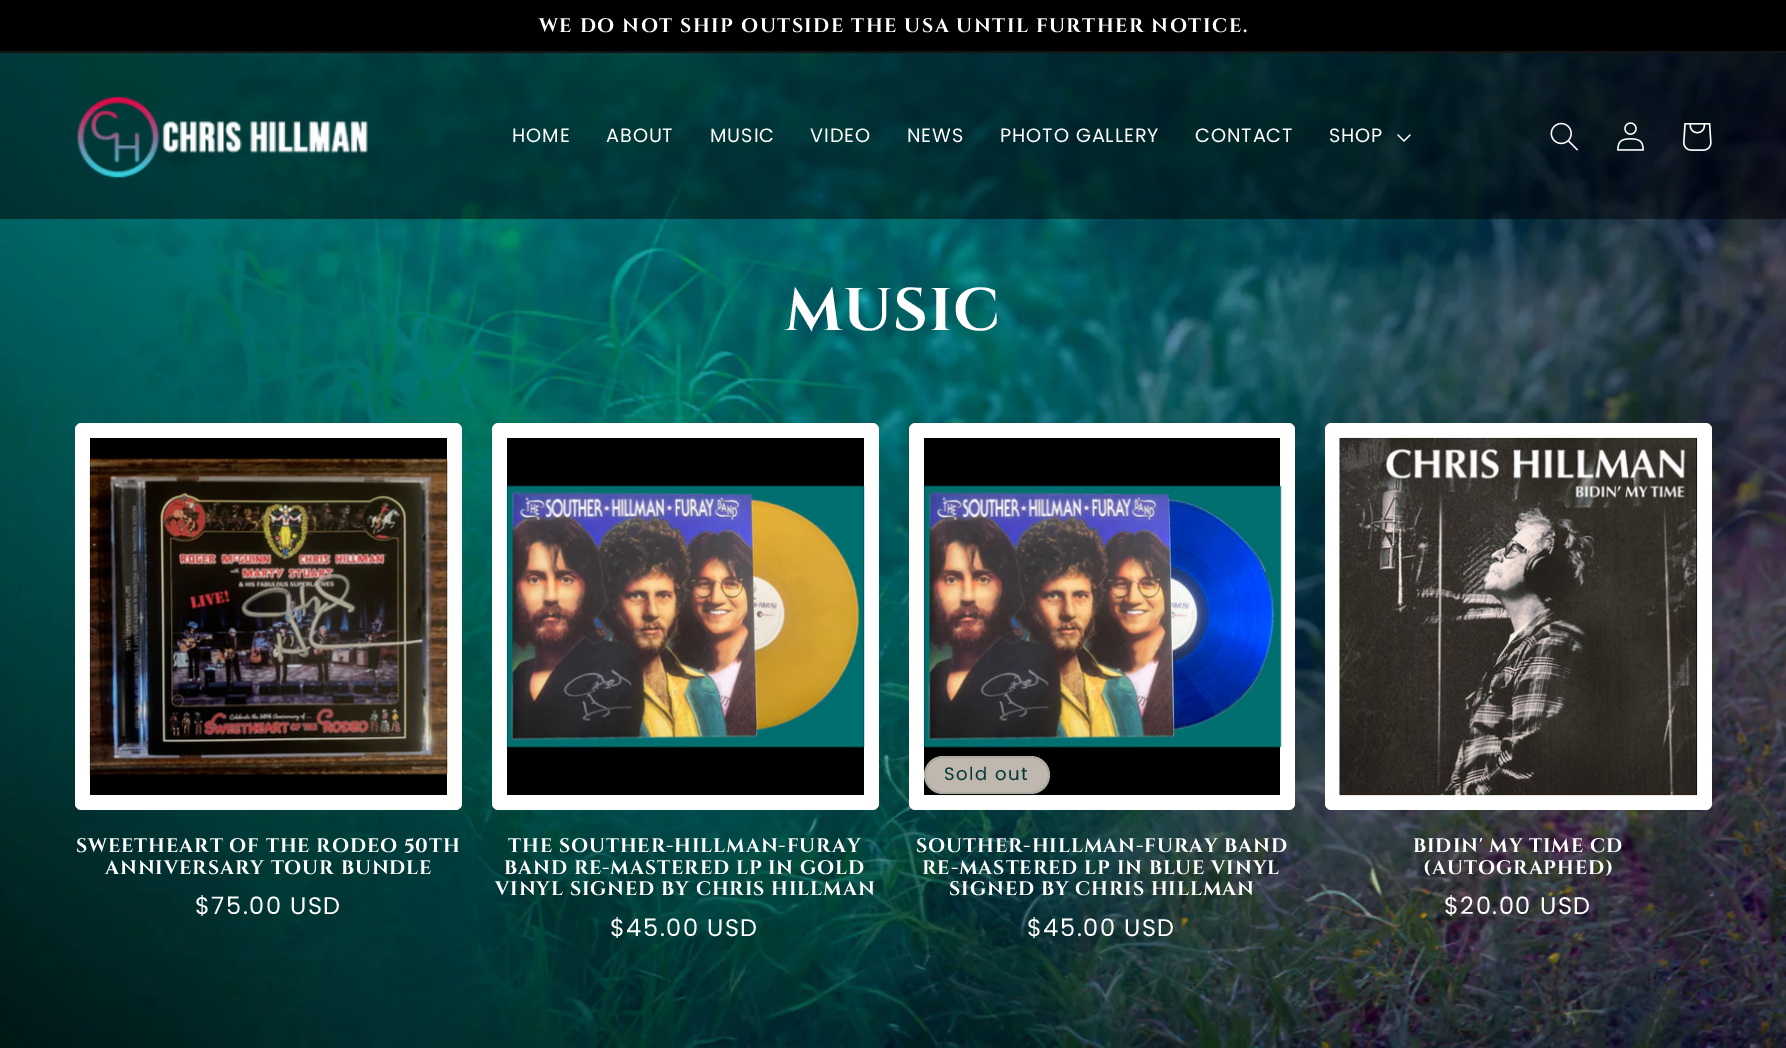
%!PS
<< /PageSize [1786 1048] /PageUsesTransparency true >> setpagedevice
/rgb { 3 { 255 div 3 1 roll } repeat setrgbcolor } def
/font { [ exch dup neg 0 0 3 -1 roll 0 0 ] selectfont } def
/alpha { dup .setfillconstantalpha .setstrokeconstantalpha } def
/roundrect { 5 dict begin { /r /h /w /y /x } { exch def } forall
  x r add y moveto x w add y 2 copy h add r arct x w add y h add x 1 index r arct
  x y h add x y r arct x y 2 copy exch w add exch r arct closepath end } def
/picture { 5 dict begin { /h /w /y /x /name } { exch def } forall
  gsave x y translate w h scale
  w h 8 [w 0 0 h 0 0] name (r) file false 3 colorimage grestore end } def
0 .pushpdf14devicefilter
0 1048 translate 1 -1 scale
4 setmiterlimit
255 255 255 rgb
0 0 1786 1048 rectfill
(img_01.rgb) 0 53 1786 995 picture
0 0 0 rgb
0 0 1786 51 rectfill
20 20 20 rgb
0 51 1786 2 rectfill
0.5 alpha
0 0 0 rgb
0 53 1786 166 rectfill
1 alpha
(img_02.rgb) 76 96 292 83 picture
(img_03.rgb) 1397 134 14 8 picture
(img_04.rgb) 1550 122 28 29 picture
(img_05.rgb) 1617 122 27 29 picture
(img_06.rgb) 1683 123 29 28 picture
75 423 387 387 6 roundrect fill
255 255 255 rgb
81 423 moveto -3 0 -6 3 -6 6 rcurveto 0 375 rlineto 0 3 3 6 6 6 rcurveto 375 0 rlineto 3 0 6 -3 6 -6 rcurveto 0 -375 rlineto 0 -3 -3 -6 -6 -6 rcurveto closepath 90 438 moveto 0 357 rlineto 357 0 rlineto 0 -357 rlineto closepath eofill
(img_07.rgb) 89 458 359 317 picture
0 0 0 rgb
492 423 387 387 6 roundrect fill
255 255 255 rgb
498 423 moveto -3 0 -6 3 -6 6 rcurveto 0 375 rlineto 0 3 3 6 6 6 rcurveto 375 0 rlineto 3 0 6 -3 6 -6 rcurveto 0 -375 rlineto 0 -3 -3 -6 -6 -6 rcurveto closepath 507 438 moveto 0 357 rlineto 357 0 rlineto 0 -357 rlineto closepath eofill
(img_08.rgb) 506 485 359 263 picture
0 0 0 rgb
909 423 386 387 6 roundrect fill
255 255 255 rgb
915 423 moveto -3 0 -6 3 -6 6 rcurveto 0 375 rlineto 0 3 3 6 6 6 rcurveto 374 0 rlineto 3 0 6 -3 6 -6 rcurveto 0 -375 rlineto 0 -3 -3 -6 -6 -6 rcurveto closepath 924 438 moveto 0 357 rlineto 356 0 rlineto 0 -357 rlineto closepath eofill
(img_09.rgb) 923 485 359 263 picture
192 183 174 rgb
924 756 126 38 19 roundrect fill
0.1 alpha
0 56 55 rgb
2 setlinewidth
925 757 124 36 18 roundrect stroke
1 alpha
0 0 0 rgb
1325 423 387 387 6 roundrect fill
255 255 255 rgb
1331 423 moveto -3 0 -6 3 -6 6 rcurveto 0 375 rlineto 0 3 3 6 6 6 rcurveto 375 0 rlineto 3 0 6 -3 6 -6 rcurveto 0 -375 rlineto 0 -3 -3 -6 -6 -6 rcurveto closepath 1340 438 moveto 0 357 rlineto 357 0 rlineto 0 -357 rlineto closepath eofill
(img_10.rgb) 1339 437 359 359 picture
/Cinzel-Bold 19.5 font
539 32 moveto 1.5 0 (WE DO NOT SHIP OUTSIDE THE USA UNTIL FURTHER NOTICE.) ashow
/Poppins-Regular 19.25 font
512 142 moveto 0.9 0 (HOME) ashow
606 142 moveto 0.9 0 (ABOUT) ashow
710 142 moveto 0.9 0 (MUSIC) ashow
810 142 moveto 0.9 0 (VIDEO) ashow
907 142 moveto 0.9 0 (NEWS) ashow
1000 142 moveto 0.9 0 (PHOTO GALLERY) ashow
1195 142 moveto 0.9 0 (CONTACT) ashow
1329 142 moveto 0.9 0 (SHOP) ashow
/Cinzel-Bold 60 font
785 330 moveto 0.9 0 (MUSIC) ashow
/Cinzel-Bold 19.5 font
76 852 moveto 0.9 0 (SWEETHEART OF THE RODEO 50TH) ashow
105 874 moveto 0.9 0 (ANNIVERSARY TOUR BUNDLE) ashow
/Poppins-Regular 24 font
195 914 moveto 1.5 0 ($75.00 USD) ashow
/Cinzel-Bold 19.5 font
508 852 moveto 0.9 0 (THE SOUTHER-HILLMAN-FURAY) ashow
504 874 moveto 0.9 0 (BAND RE-MASTERED LP IN GOLD) ashow
495 895 moveto 0.9 0 (VINYL SIGNED BY CHRIS HILLMAN) ashow
/Poppins-Regular 24 font
610 936 moveto 1.5 0 ($45.00 USD) ashow
/Poppins-Regular 18 font
0 56 55 rgb
944 780 moveto 1.5 0 (Sold out) ashow
/Cinzel-Bold 19.5 font
255 255 255 rgb
916 852 moveto 0.9 0 (SOUTHER-HILLMAN-FURAY BAND) ashow
922 874 moveto 0.9 0 (RE-MASTERED LP IN BLUE VINYL) ashow
949 895 moveto 0.9 0 (SIGNED BY CHRIS HILLMAN) ashow
/Poppins-Regular 24 font
1027 936 moveto 1.5 0 ($45.00 USD) ashow
/Cinzel-Bold 19.5 font
1413 852 moveto 0.9 0 (BIDIN' MY TIME CD) ashow
1423 874 moveto 0.9 0 (\(AUTOGRAPHED\)) ashow
/Poppins-Regular 24 font
1444 914 moveto 1.5 0 ($20.00 USD) ashow
.poppdf14devicefilter showpage
